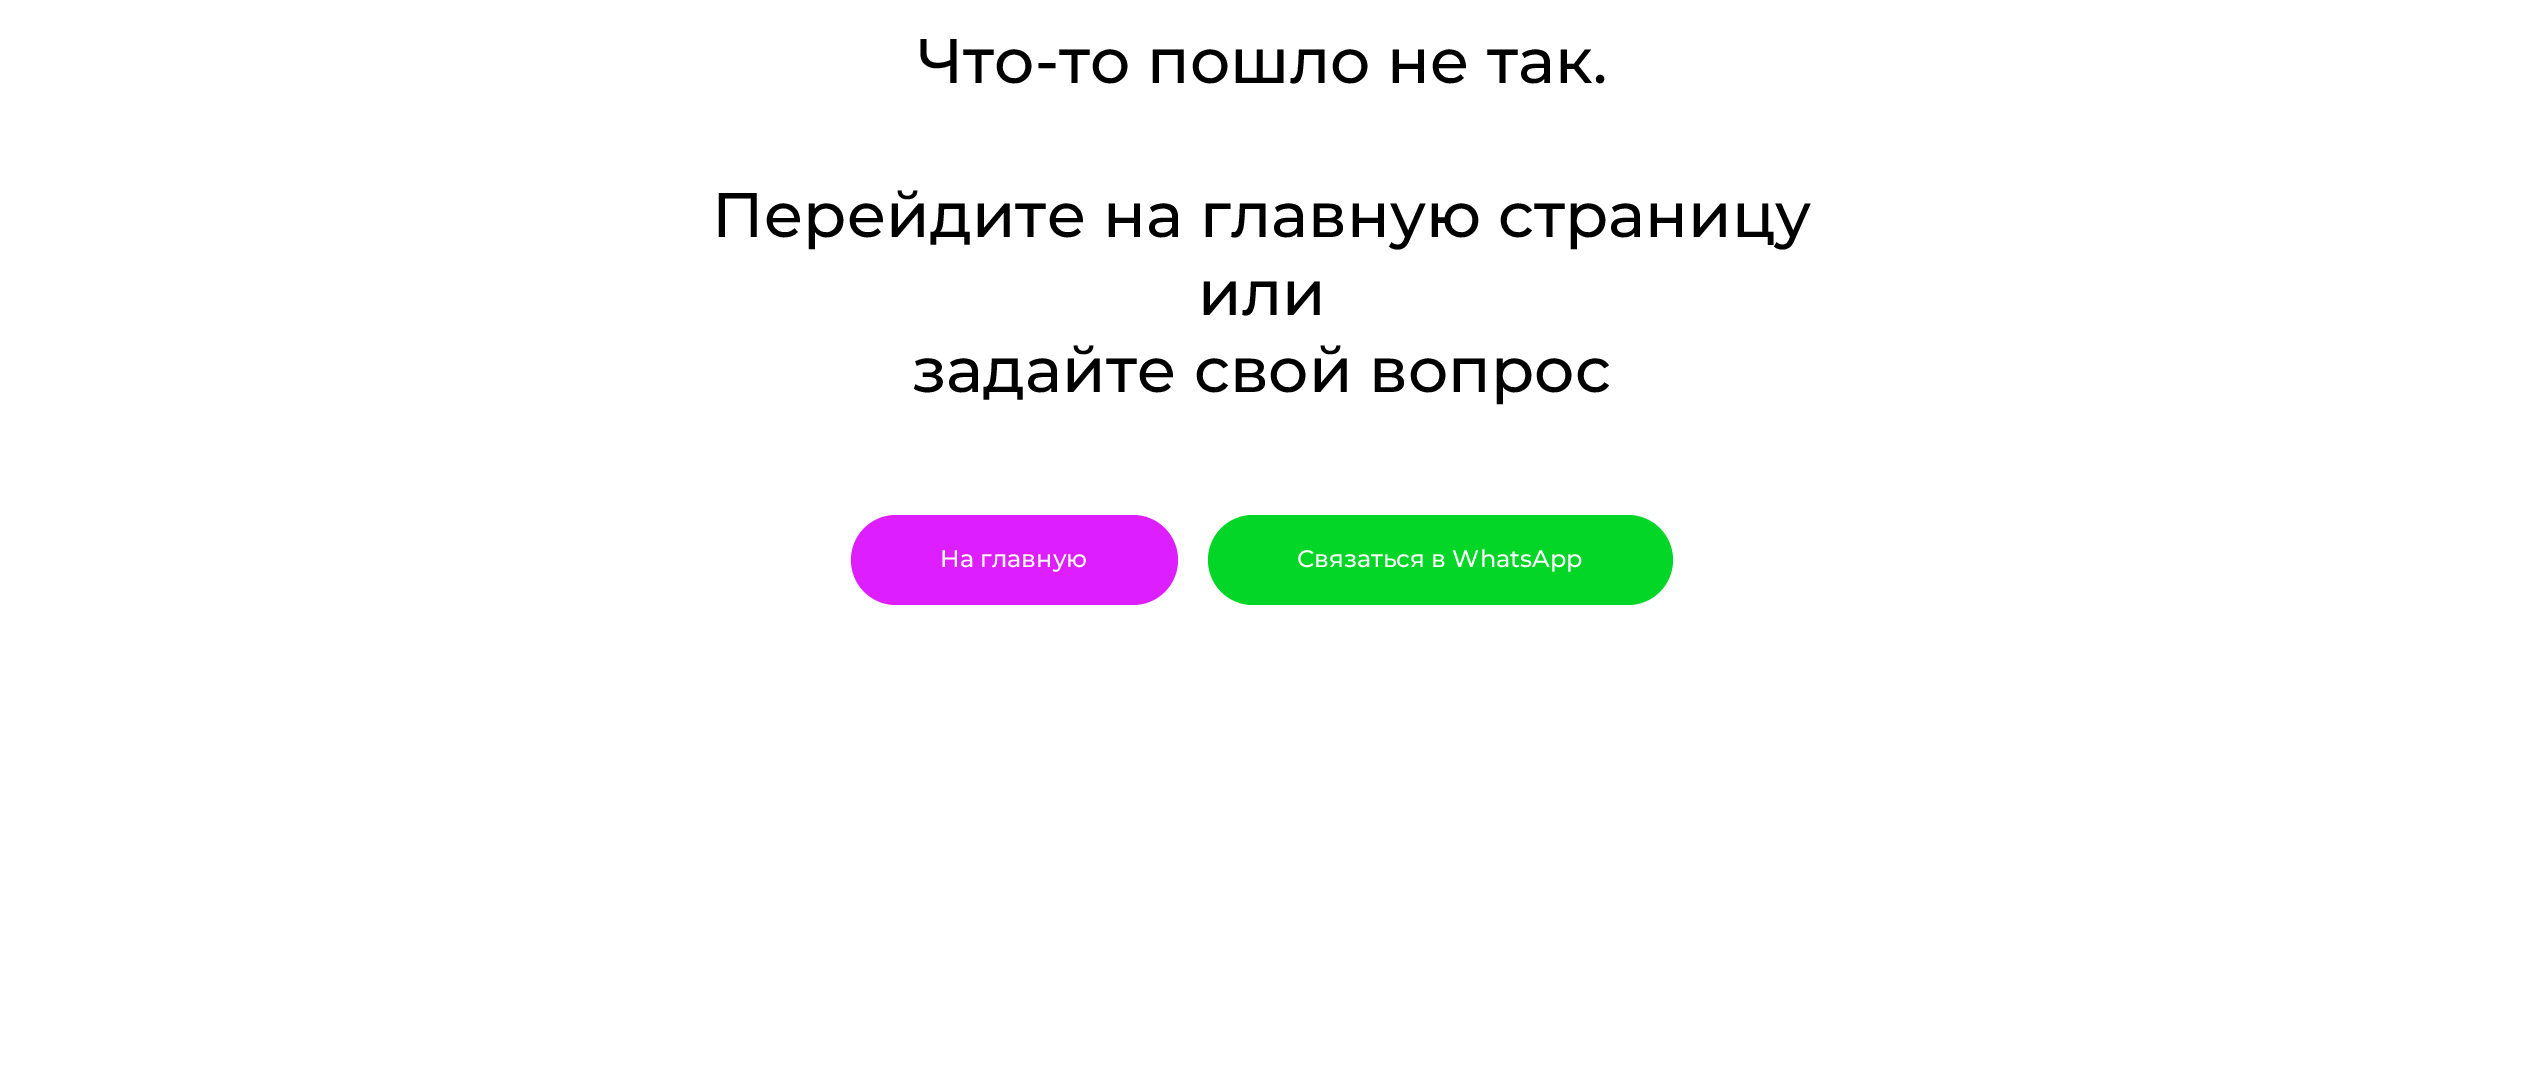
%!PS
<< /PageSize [2522 1076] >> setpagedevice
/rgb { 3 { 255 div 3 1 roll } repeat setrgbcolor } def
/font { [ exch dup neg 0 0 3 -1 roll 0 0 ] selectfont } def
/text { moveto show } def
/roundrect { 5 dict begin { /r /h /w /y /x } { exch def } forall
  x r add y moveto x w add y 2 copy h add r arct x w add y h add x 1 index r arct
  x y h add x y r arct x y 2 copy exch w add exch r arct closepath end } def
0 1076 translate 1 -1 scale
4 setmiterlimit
255 255 255 rgb
0 0 2522 1076 rectfill
221 31 255 rgb
851 515 327 90 45 roundrect fill
4 214 39 rgb
1208 515 465 90 45 roundrect fill
/Montserrat-Medium 63 font
0 0 0 rgb
(Что-то пошло не так.) 917 83 text
(Перейдите на главную страницу) 712 237 text
(или) 1198 315 text
(задайте свой вопрос) 912 392 text
/Montserrat-Medium 24 font
255 255 255 rgb
(На главную) 940 567 text
(Связаться в WhatsApp) 1297 567 text
showpage
